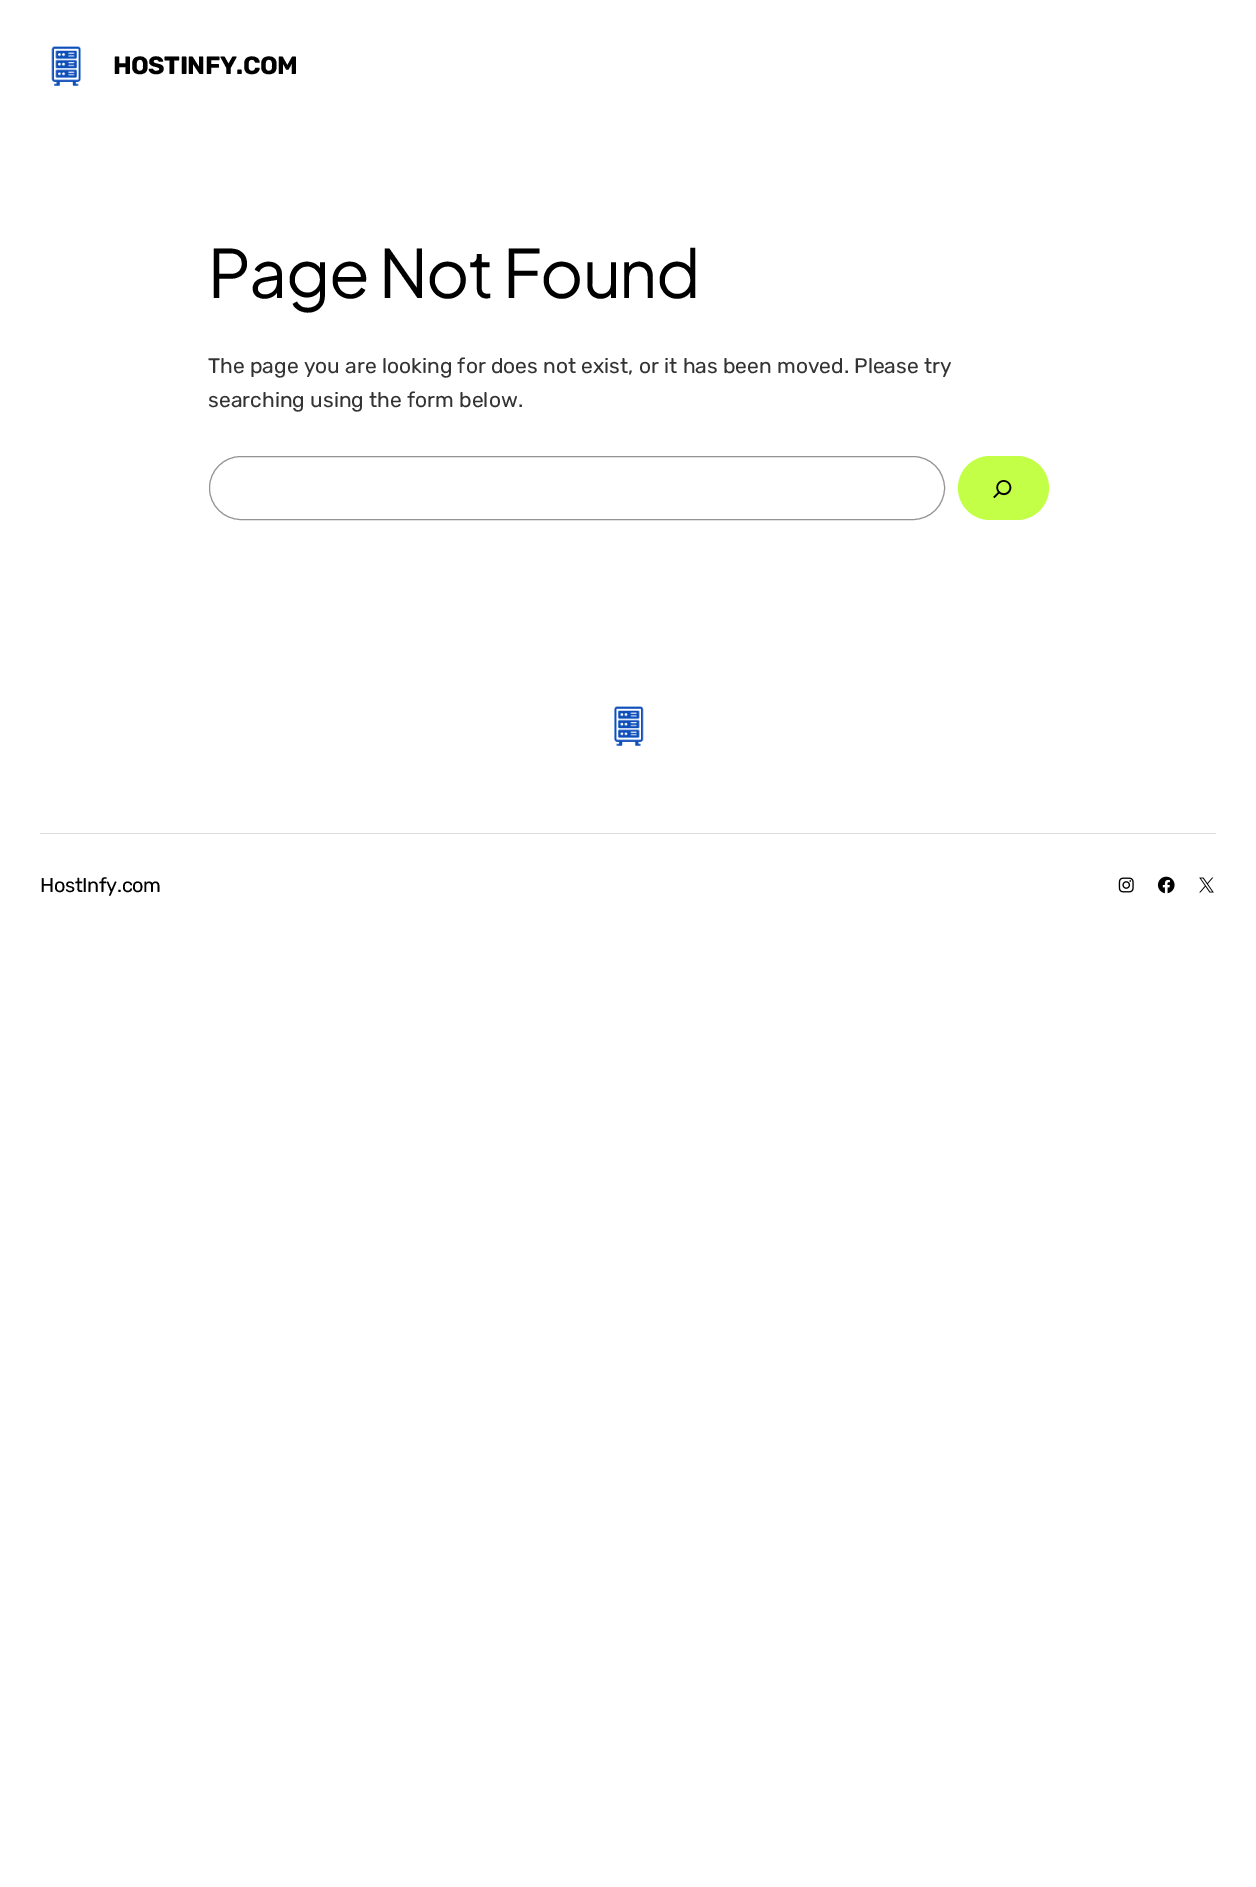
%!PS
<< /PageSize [1256 1887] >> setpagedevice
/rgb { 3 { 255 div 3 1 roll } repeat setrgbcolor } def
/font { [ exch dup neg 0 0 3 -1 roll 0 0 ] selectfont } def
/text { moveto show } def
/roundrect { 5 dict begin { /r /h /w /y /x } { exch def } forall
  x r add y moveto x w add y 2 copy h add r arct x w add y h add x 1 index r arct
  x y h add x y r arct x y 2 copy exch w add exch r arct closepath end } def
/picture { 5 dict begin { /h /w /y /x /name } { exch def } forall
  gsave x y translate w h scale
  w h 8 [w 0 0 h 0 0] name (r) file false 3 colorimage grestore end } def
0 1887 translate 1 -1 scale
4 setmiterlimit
255 255 255 rgb
0 0 1256 1887 rectfill
(img_01.rgb) 51 46 30 40 picture
148 148 148 rgb
209.5 456.5 735 63 31.5 roundrect stroke
196 255 71 rgb
958 456 91 64 32 roundrect fill
(img_02.rgb) 993 480 19 19 picture
(img_03.rgb) 614 706 30 40 picture
222 222 222 rgb
40 833 1176 1 rectfill
(img_04.rgb) 1118 877 16 16 picture
(img_05.rgb) 1157 876 18 18 picture
(img_06.rgb) 1199 877 15 16 picture
/Rubik-Bold 25 font
0 0 0 rgb
113 74 moveto -0.5 0 (HOSTINFY.COM) ashow
/PlusJakartaSans-Regular 66.5 font
208 298 moveto -1.3 0 (Page Not Found) ashow
/Rubik-Regular 21.05 font
51 51 51 rgb
(The page you are looking for does not exist, or it has been moved. Please try) 208 373 text
(searching using the form below.) 208 407 text
/Rubik-Regular 20 font
0 0 0 rgb
40 892 moveto -0.4 0 (HostInfy.com) ashow
showpage
